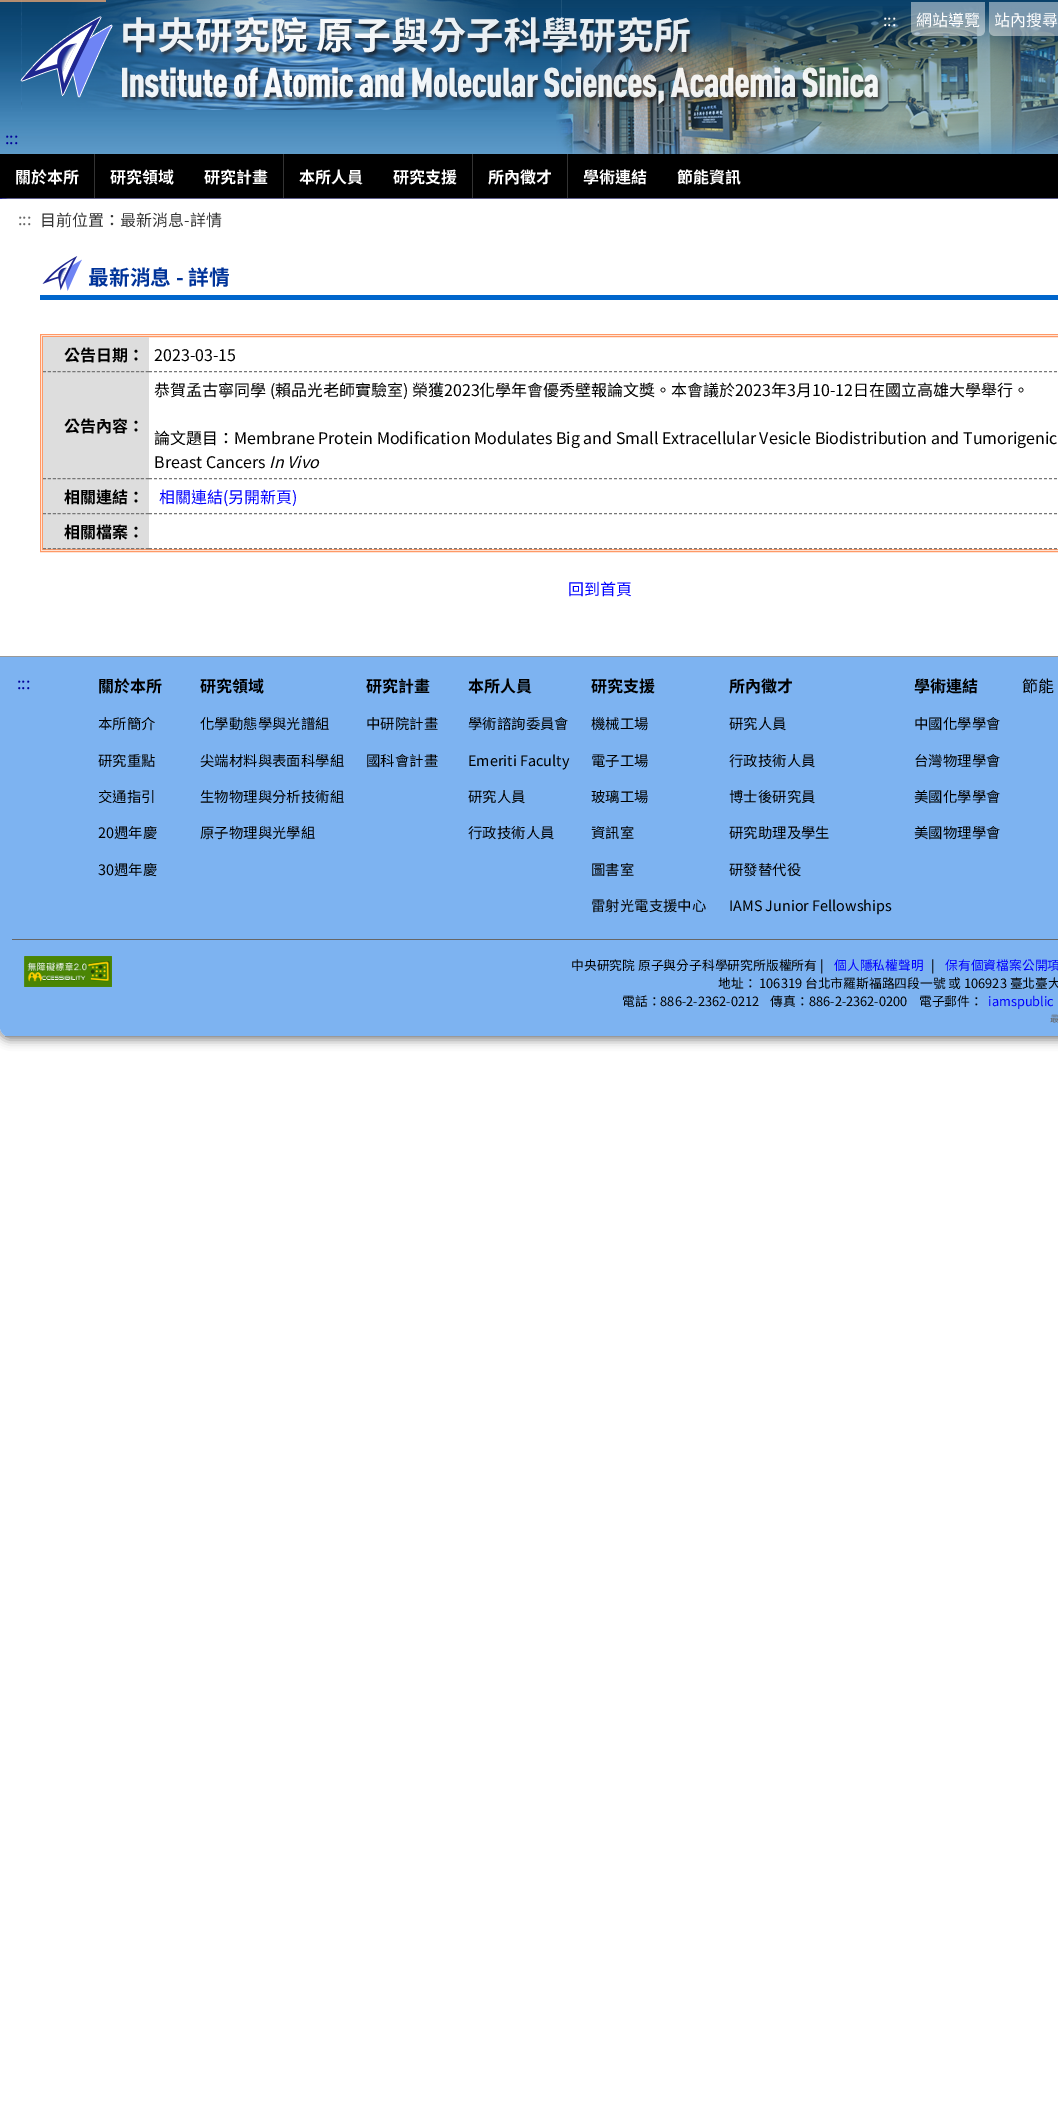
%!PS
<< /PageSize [1058 2117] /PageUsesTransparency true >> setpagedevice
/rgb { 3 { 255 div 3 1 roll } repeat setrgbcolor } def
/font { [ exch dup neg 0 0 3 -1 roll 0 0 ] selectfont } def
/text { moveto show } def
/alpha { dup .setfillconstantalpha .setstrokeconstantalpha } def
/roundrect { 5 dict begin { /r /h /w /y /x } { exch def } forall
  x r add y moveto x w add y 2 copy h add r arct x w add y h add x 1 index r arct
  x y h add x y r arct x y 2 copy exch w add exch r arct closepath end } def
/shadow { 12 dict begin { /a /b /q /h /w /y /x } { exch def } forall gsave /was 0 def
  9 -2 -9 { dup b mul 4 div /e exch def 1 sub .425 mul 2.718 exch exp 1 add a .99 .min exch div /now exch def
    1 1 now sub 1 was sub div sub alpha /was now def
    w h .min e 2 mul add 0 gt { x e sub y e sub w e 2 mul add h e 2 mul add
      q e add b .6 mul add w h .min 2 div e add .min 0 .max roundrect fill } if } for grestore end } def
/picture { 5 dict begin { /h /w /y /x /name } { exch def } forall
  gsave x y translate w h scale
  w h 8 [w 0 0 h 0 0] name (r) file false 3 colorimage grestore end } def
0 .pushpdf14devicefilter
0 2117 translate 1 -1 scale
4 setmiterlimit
255 255 255 rgb
0 0 1058 2117 rectfill
(img_01.rgb) 0 0 1058 154 picture
(img_02.rgb) 556 6 502 148 picture
(img_03.rgb) 20 0 863 110 picture
0.7 alpha
253 173 115 rgb
0 0 106 2 rectfill
0.45 alpha
255 255 255 rgb
911 2 moveto 74 0 rlineto 0 28 rlineto 0 3.5 -2.5 6 -6 6 rcurveto -62 0 rlineto -3.5 0 -6 -2.5 -6 -6 rcurveto closepath fill
989 2 moveto 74 0 rlineto 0 28 rlineto 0 3.5 -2.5 6 -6 6 rcurveto -62 0 rlineto -3.5 0 -6 -2.5 -6 -6 rcurveto closepath fill
1 alpha
0 0 153 rgb
0 198 1058 1 rectfill
136 136 136 rgb
-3 196 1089 844 13 5 1 shadow
0 0 0 rgb
0 154 1058 44 rectfill
51 51 51 rgb
94 154 1 44 rectfill
283 154 1 44 rectfill
472 154 1 44 rectfill
567 154 1 44 rectfill
255 255 255 rgb
0 199 moveto 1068 0 rlineto 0 828 rlineto 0 5.5 -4.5 10 -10 10 rcurveto -1048 0 rlineto -5.5 0 -10 -4.5 -10 -10 rcurveto closepath fill
(img_04.rgb) 42 256 40 35 picture
0 102 204 rgb
40 295 1018 5 rectfill
255 153 102 rgb
40.5 334.5 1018 217 rectstroke
42.5 336.5 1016 213 rectstroke
221 221 221 rgb
43 337 106 212 rectfill
119 119 119 rgb
[3 1.9] 0 setdash
43 371.5 moveto 106 0 rlineto stroke
[3 2] 0 setdash
149 371.5 moveto 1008 0 rlineto stroke
[3 1.9] 0 setdash
43 478.5 moveto 106 0 rlineto stroke
[3 2] 0 setdash
149 478.5 moveto 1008 0 rlineto stroke
[3 1.9] 0 setdash
43 513.5 moveto 106 0 rlineto stroke
[3 2] 0 setdash
149 513.5 moveto 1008 0 rlineto stroke
[3 1.9] 0 setdash
43 548.5 moveto 106 0 rlineto stroke
[3 2] 0 setdash
149 548.5 moveto 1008 0 rlineto stroke
125 179 241 rgb
0 656 moveto 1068 0 rlineto 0 371 rlineto 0 5.5 -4.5 10 -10 10 rcurveto -1048 0 rlineto -5.5 0 -10 -4.5 -10 -10 rcurveto closepath fill
153 153 153 rgb
0 656 1058 1 rectfill
5 1036 1053 1 rectfill
102 102 102 rgb
12 939 1046 1 rectfill
(img_05.rgb) 24 956 88 31 picture
/NotoSansTC-Regular 16 font
255 255 255 rgb
(:::) 883 26 text
(網站導覽) 916 26 text
(站內搜尋) 994 26 text
0 0 153 rgb
(:::) 5 144 text
/NotoSansTC-Bold 16 font
255 255 255 rgb
(關於本所) 15 183 text
(研究領域) 110 183 text
(研究計畫) 204 183 text
(本所人員) 299 183 text
(研究支援) 393 183 text
(所內徵才) 488 183 text
(學術連結) 583 183 text
(節能資訊) 677 183 text
/NotoSansTC-Regular 16 font
102 102 102 rgb
(:::) 18 225 text
51 51 51 rgb
(目前位置：最新消息-詳情) 40 226 text
/NotoSansTC-Bold 20.75 font
0 51 153 rgb
(最新消息 - 詳情) 88 285 text
/NotoSansTC-Bold 16 font
0 0 0 rgb
(公告日期：) 64 361 text
/NotoSansTC-Regular 16 font
(2023-03-15) 154 361 text
/NotoSansTC-Bold 16 font
(公告內容：) 64 432 text
/NotoSansTC-Regular 16 font
(恭賀孟古寧同學 \(賴品光老師實驗室\) 榮獲2023化學年會優秀壁報論文獎。本會議於2023年3月10-12日在國立高雄大學舉行。) 154 396 text
(論文題目：Membrane Protein Modification Modulates Big and Small Extracellular Vesicle Biodistribution and Tumorigenic) 154 444 text
(Breast Cancers) 154 468 text
/NotoSansTC-Italic 16 font
(In Vivo) 269 468 text
/NotoSansTC-Bold 16 font
(相關連結：) 64 503 text
/NotoSansTC-Regular 16 font
0 0 255 rgb
(相關連結\(另開新頁\)) 159 503 text
/NotoSansTC-Bold 16 font
0 0 0 rgb
(相關檔案：) 64 538 text
/NotoSansTC-Regular 16 font
0 0 255 rgb
(回到首頁) 568 595 text
0 0 153 rgb
(:::) 17 689 text
/NotoSansTC-Bold 16 font
0 0 0 rgb
(關於本所) 98 692 text
/NotoSansTC-Regular 14.4 font
(本所簡介) 98 729 text
(研究重點) 98 766 text
(交通指引) 98 802 text
(20週年慶) 98 838 text
(30週年慶) 98 875 text
/NotoSansTC-Bold 16 font
(研究領域) 200 692 text
/NotoSansTC-Regular 14.4 font
(化學動態學與光譜組) 200 729 text
(尖端材料與表面科學組) 200 766 text
(生物物理與分析技術組) 200 802 text
(原子物理與光學組) 200 838 text
/NotoSansTC-Bold 16 font
(研究計畫) 366 692 text
/NotoSansTC-Regular 14.4 font
(中研院計畫) 366 729 text
(國科會計畫) 366 766 text
/NotoSansTC-Bold 16 font
(本所人員) 468 692 text
/NotoSansTC-Regular 14.4 font
(學術諮詢委員會) 468 729 text
(Emeriti Faculty) 468 766 text
(研究人員) 468 802 text
(行政技術人員) 468 838 text
/NotoSansTC-Bold 16 font
(研究支援) 591 692 text
/NotoSansTC-Regular 14.4 font
(機械工場) 591 729 text
(電子工場) 591 766 text
(玻璃工場) 591 802 text
(資訊室) 591 838 text
(圖書室) 591 875 text
(雷射光電支援中心) 591 911 text
/NotoSansTC-Bold 16 font
(所內徵才) 729 692 text
/NotoSansTC-Regular 14.4 font
(研究人員) 729 729 text
(行政技術人員) 729 766 text
(博士後研究員) 729 802 text
(研究助理及學生) 729 838 text
(研發替代役) 729 875 text
(IAMS Junior Fellowships) 729 911 text
/NotoSansTC-Bold 16 font
(學術連結) 914 692 text
/NotoSansTC-Regular 14.4 font
(中國化學學會) 914 729 text
(台灣物理學會) 914 766 text
(美國化學學會) 914 802 text
(美國物理學會) 914 838 text
/NotoSansTC-Regular 16 font
(節能) 1022 692 text
/NotoSansTC-Regular 12.8 font
(中央研究院 原子與分子科學研究所版權所有 |) 571 970 text
0 0 255 rgb
(個人隱私權聲明) 834 970 text
0 0 0 rgb
(|) 931 970 text
0 0 255 rgb
(保有個資檔案公開項) 945 970 text
0 0 0 rgb
(地址： 106319 台北市羅斯福路四段一號 或 106923 臺北臺大) 718 988 text
(電話：886-2-2362-0212    傳真：886-2-2362-0200    電子郵件：) 622 1006 text
0 0 255 rgb
(iamspublic) 988 1006 text
/NotoSansTC-Regular 9 font
102 102 102 rgb
(最) 1050 1022 text
.poppdf14devicefilter showpage
